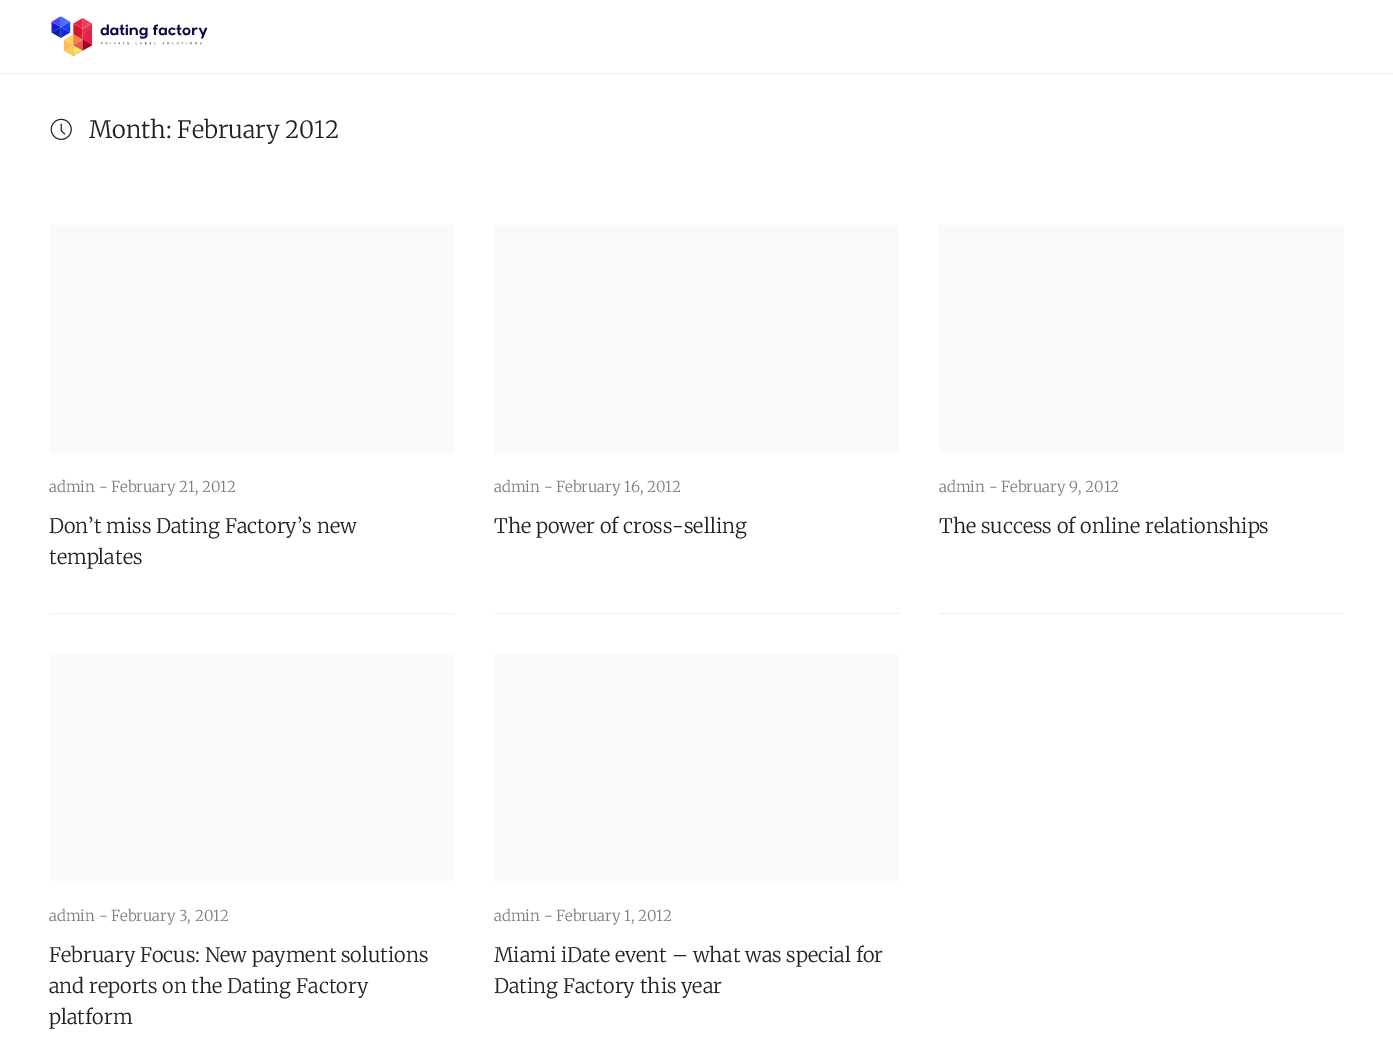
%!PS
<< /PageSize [1393 1050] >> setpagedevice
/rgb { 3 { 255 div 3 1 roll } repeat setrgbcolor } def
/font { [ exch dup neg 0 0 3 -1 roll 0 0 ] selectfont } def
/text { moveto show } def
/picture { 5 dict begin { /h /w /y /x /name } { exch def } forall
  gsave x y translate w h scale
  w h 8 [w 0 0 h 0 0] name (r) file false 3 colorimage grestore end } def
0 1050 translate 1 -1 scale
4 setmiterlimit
255 255 255 rgb
0 0 1393 1050 rectfill
236 240 241 rgb
0 73 1393 1 rectfill
(img_01.rgb) 51 16 157 40 picture
(img_02.rgb) 50 118 22 22 picture
50 613 404 1 rectfill
250 250 250 rgb
50 225 404 228 rectfill
236 240 241 rgb
494 613 405 1 rectfill
250 250 250 rgb
494 225 405 228 rectfill
236 240 241 rgb
939 613 405 1 rectfill
250 250 250 rgb
939 225 405 228 rectfill
50 654 404 227 rectfill
494 654 405 227 rectfill
/Merriweather-Light 23.75 font
34 34 34 rgb
(Month: February 2012) 89 138 text
/Merriweather-Light 15 font
126 126 126 rgb
(admin - February 21, 2012) 49 492 text
/Merriweather-Light 20 font
34 34 34 rgb
(Don’t miss Dating Factory’s new) 49 533 text
(templates) 49 564 text
/Merriweather-Light 15 font
126 126 126 rgb
(admin - February 16, 2012) 494 492 text
/Merriweather-Light 20 font
34 34 34 rgb
(The power of cross-selling) 494 533 text
/Merriweather-Light 15 font
126 126 126 rgb
(admin - February 9, 2012) 939 492 text
/Merriweather-Light 20 font
34 34 34 rgb
(The success of online relationships) 939 533 text
/Merriweather-Light 15 font
126 126 126 rgb
(admin - February 3, 2012) 49 921 text
/Merriweather-Light 20 font
34 34 34 rgb
(February Focus: New payment solutions) 49 962 text
(and reports on the Dating Factory) 49 993 text
(platform) 49 1024 text
/Merriweather-Light 15 font
126 126 126 rgb
(admin - February 1, 2012) 494 921 text
/Merriweather-Light 20 font
34 34 34 rgb
(Miami iDate event – what was special for) 494 962 text
(Dating Factory this year) 494 993 text
showpage
